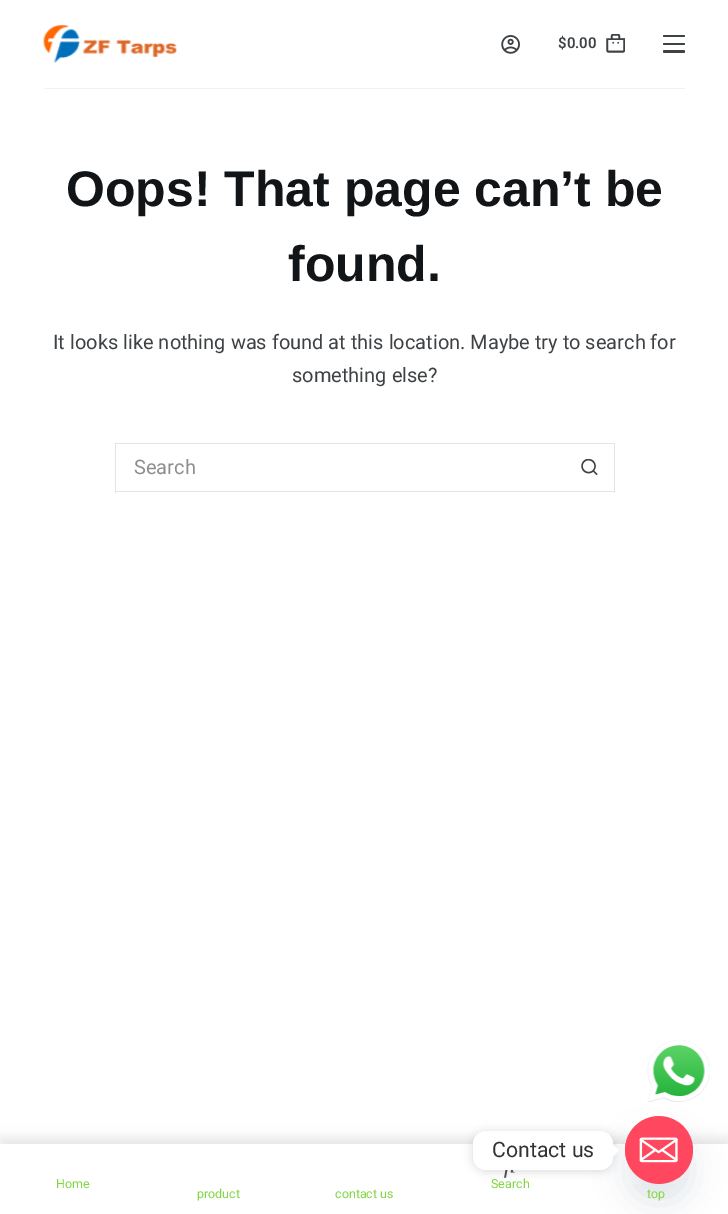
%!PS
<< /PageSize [728 1214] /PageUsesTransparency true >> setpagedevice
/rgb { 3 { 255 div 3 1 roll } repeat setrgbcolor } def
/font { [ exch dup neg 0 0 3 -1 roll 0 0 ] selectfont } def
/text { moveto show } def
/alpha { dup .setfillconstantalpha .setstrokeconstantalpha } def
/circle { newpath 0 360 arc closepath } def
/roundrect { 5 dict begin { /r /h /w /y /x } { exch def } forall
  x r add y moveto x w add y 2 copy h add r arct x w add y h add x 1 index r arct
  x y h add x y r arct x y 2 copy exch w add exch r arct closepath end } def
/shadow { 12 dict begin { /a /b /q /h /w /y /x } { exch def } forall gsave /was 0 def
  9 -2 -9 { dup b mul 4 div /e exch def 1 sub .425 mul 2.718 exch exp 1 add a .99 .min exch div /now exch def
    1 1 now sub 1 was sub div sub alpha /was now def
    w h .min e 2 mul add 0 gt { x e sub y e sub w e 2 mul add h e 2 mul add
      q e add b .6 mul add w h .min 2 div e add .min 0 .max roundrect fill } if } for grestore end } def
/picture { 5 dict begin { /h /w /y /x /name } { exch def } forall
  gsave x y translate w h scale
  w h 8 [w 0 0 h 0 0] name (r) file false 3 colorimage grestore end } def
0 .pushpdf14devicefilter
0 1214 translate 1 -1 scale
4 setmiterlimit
255 255 255 rgb
0 0 728 1214 rectfill
242 242 242 rgb
44 88 641 1 rectfill
(img_01.rgb) 43 25 134 38 picture
(img_02.rgb) 501 35 19 19 picture
(img_03.rgb) 606 34 19 19 picture
63 66 69 rgb
663 35 22 2 1 roundrect fill
663 43 22 2 1 roundrect fill
663 50 22 3 1.5 roundrect fill
224 229 235 rgb
115 443 500 1 rectfill
115 491 450 1 rectfill
115 443 1 50 rectfill
614 443 1 50 rectfill
565 491 50 1 rectfill
(img_04.rgb) 581 459 17 16 picture
0 0 0 rgb
0 1138 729 71 0 6 0.1 shadow
255 255 255 rgb
0 1144 728 70 rectfill
73 104 126 rgb
625 1136 68 68 34 15 0.16 shadow
(img_05.rgb) 647 1040 63 62 picture
255 72 95 rgb
659 1150 34 circle fill
(img_06.rgb) 625 1116 53 68 picture
(img_07.rgb) 504 1170 11 8 picture
0 0 0 rgb
473 1133 140 38 13 5 0.15 shadow
255 255 255 rgb
473 1131 140 39 13 roundrect fill
612.5 1157 moveto 0 -12.5 rlineto 6.5 6 rlineto closepath fill
/Roboto-SemiBold 15 font
63 66 69 rgb
($0.00) 558 48 text
/LiberationSans-Bold 50 font
17 21 24 rgb
(Oops! That page can’t be) 66 206 text
(found.) 288 281 text
/Roboto-Regular 20 font
63 66 69 rgb
(It looks like nothing was found at this location. Maybe try to search for) 53 349 text
(something else?) 292 382 text
140 142 143 rgb
(Search) 134 474 text
/Roboto-Regular 21.25 font
51 51 51 rgb
(Contact us) 492 1157 text
/Roboto-Regular 12.5 font
129 215 66 rgb
(Home) 56 1188 text
(Search) 491 1188 text
(product) 197 1198 text
(contact us) 335 1198 text
(top) 647 1198 text
.poppdf14devicefilter showpage
